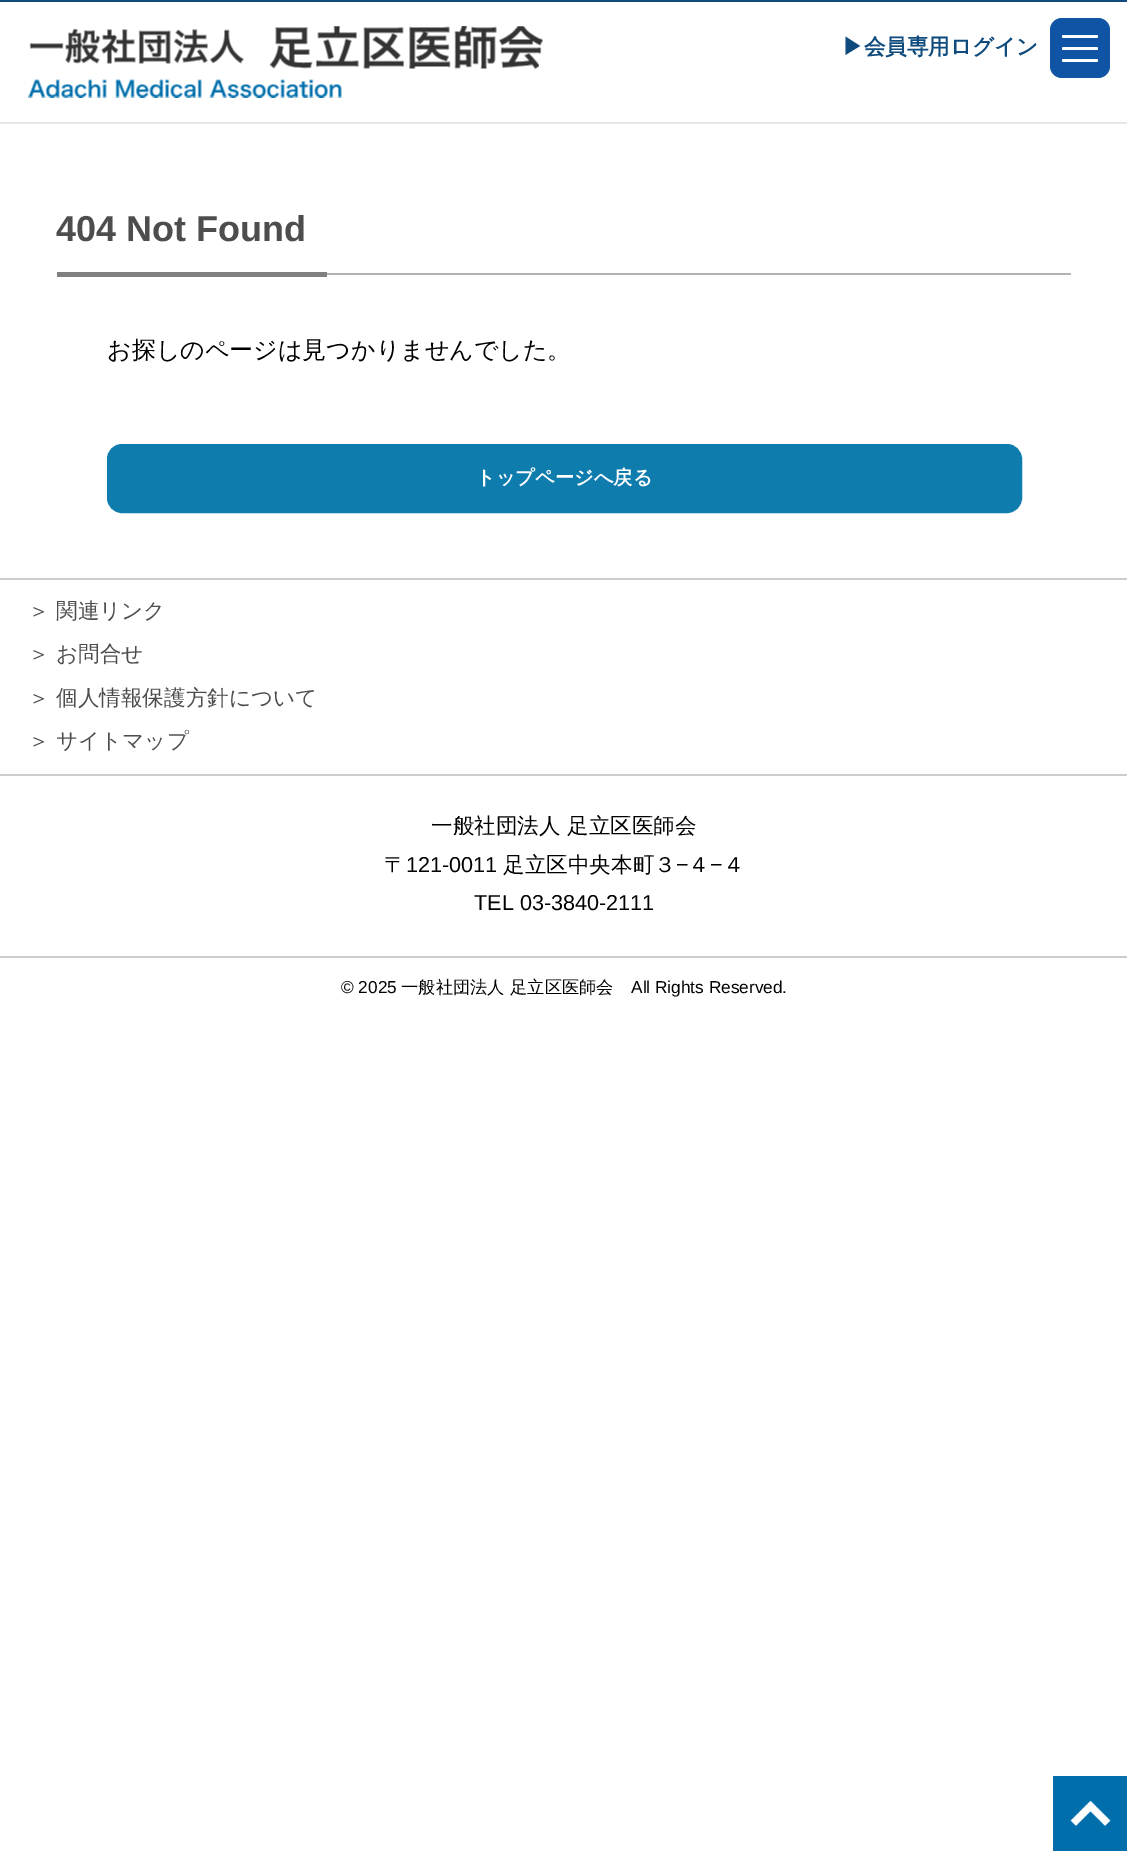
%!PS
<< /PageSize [1127 1851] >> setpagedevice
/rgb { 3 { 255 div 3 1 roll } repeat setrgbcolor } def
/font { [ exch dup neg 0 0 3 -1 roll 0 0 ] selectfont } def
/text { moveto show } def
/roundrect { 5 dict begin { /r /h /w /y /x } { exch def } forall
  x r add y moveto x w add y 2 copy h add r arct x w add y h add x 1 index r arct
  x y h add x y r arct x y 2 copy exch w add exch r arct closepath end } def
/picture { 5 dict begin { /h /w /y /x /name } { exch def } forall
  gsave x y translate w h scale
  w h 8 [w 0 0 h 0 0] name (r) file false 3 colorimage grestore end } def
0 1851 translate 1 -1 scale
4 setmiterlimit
255 255 255 rgb
0 0 1127 1851 rectfill
16 75 125 rgb
0 0 1127 2 rectfill
230 230 230 rgb
0 122 1127 2 rectfill
(img_01.rgb) 28 26 515 72 picture
16 84 165 rgb
1050 18 60 60 12 roundrect fill
255 255 255 rgb
1062 35 36 3 1.5 roundrect fill
1062 47 36 3 1.5 roundrect fill
1062 59 36 3 1.5 roundrect fill
179 179 179 rgb
327 273 744 2 rectfill
128 128 128 rgb
57 272 270 5 rectfill
14 125 174 rgb
108.5 445.5 912 66 13.5 roundrect gsave fill grestore
3 setlinewidth
stroke
204 204 204 rgb
0 578 1127 2 rectfill
0 774 1127 2 rectfill
0 956 1127 2 rectfill
(img_02.rgb) 1053 1776 74 75 picture
/WenQuanYiZenHei-Bold 21.6 font
16 75 125 rgb
(▶会員専用ログイン) 842 54 text
/LiberationSans-Bold 36 font
77 77 77 rgb
(404 Not Found) 56 241 text
/WenQuanYiZenHei-Medium 24 font
0 0 0 rgb
(お探しのページは見つかりませんでした。) 107 358 text
/WenQuanYiZenHei-Bold 19.25 font
255 255 255 rgb
(トップページへ戻る) 476 484 text
/WenQuanYiZenHei-Medium 21.6 font
77 77 77 rgb
(＞ 関連リンク) 28 618 text
(＞ お問合せ) 28 661 text
(＞ 個人情報保護方針について) 28 705 text
(＞ サイトマップ) 28 748 text
0 0 0 rgb
(一般社団法人 足立区医師会) 431 833 text
(〒) 384 872 text
/LiberationSans-Regular 21.6 font
(121-0011) 406 872 text
/WenQuanYiZenHei-Medium 21.6 font
(足立区中央本町３) 503 872 text
/LiberationSans-Regular 21.6 font
(−) 676 872 text
/WenQuanYiZenHei-Medium 21.6 font
(４) 688 872 text
/LiberationSans-Regular 21.6 font
(−) 710 872 text
/WenQuanYiZenHei-Medium 21.6 font
(４) 723 872 text
/LiberationSans-Regular 21.6 font
(TEL 03-3840-2111) 474 910 text
/LiberationSans-Regular 17.25 font
(© 2025) 341 993 text
/WenQuanYiZenHei-Medium 17.25 font
(一般社団法人) 401 993 text
(足立区医師会) 510 993 text
/LiberationSans-Regular 17.25 font
(All Rights Reserved.) 631 993 text
showpage
